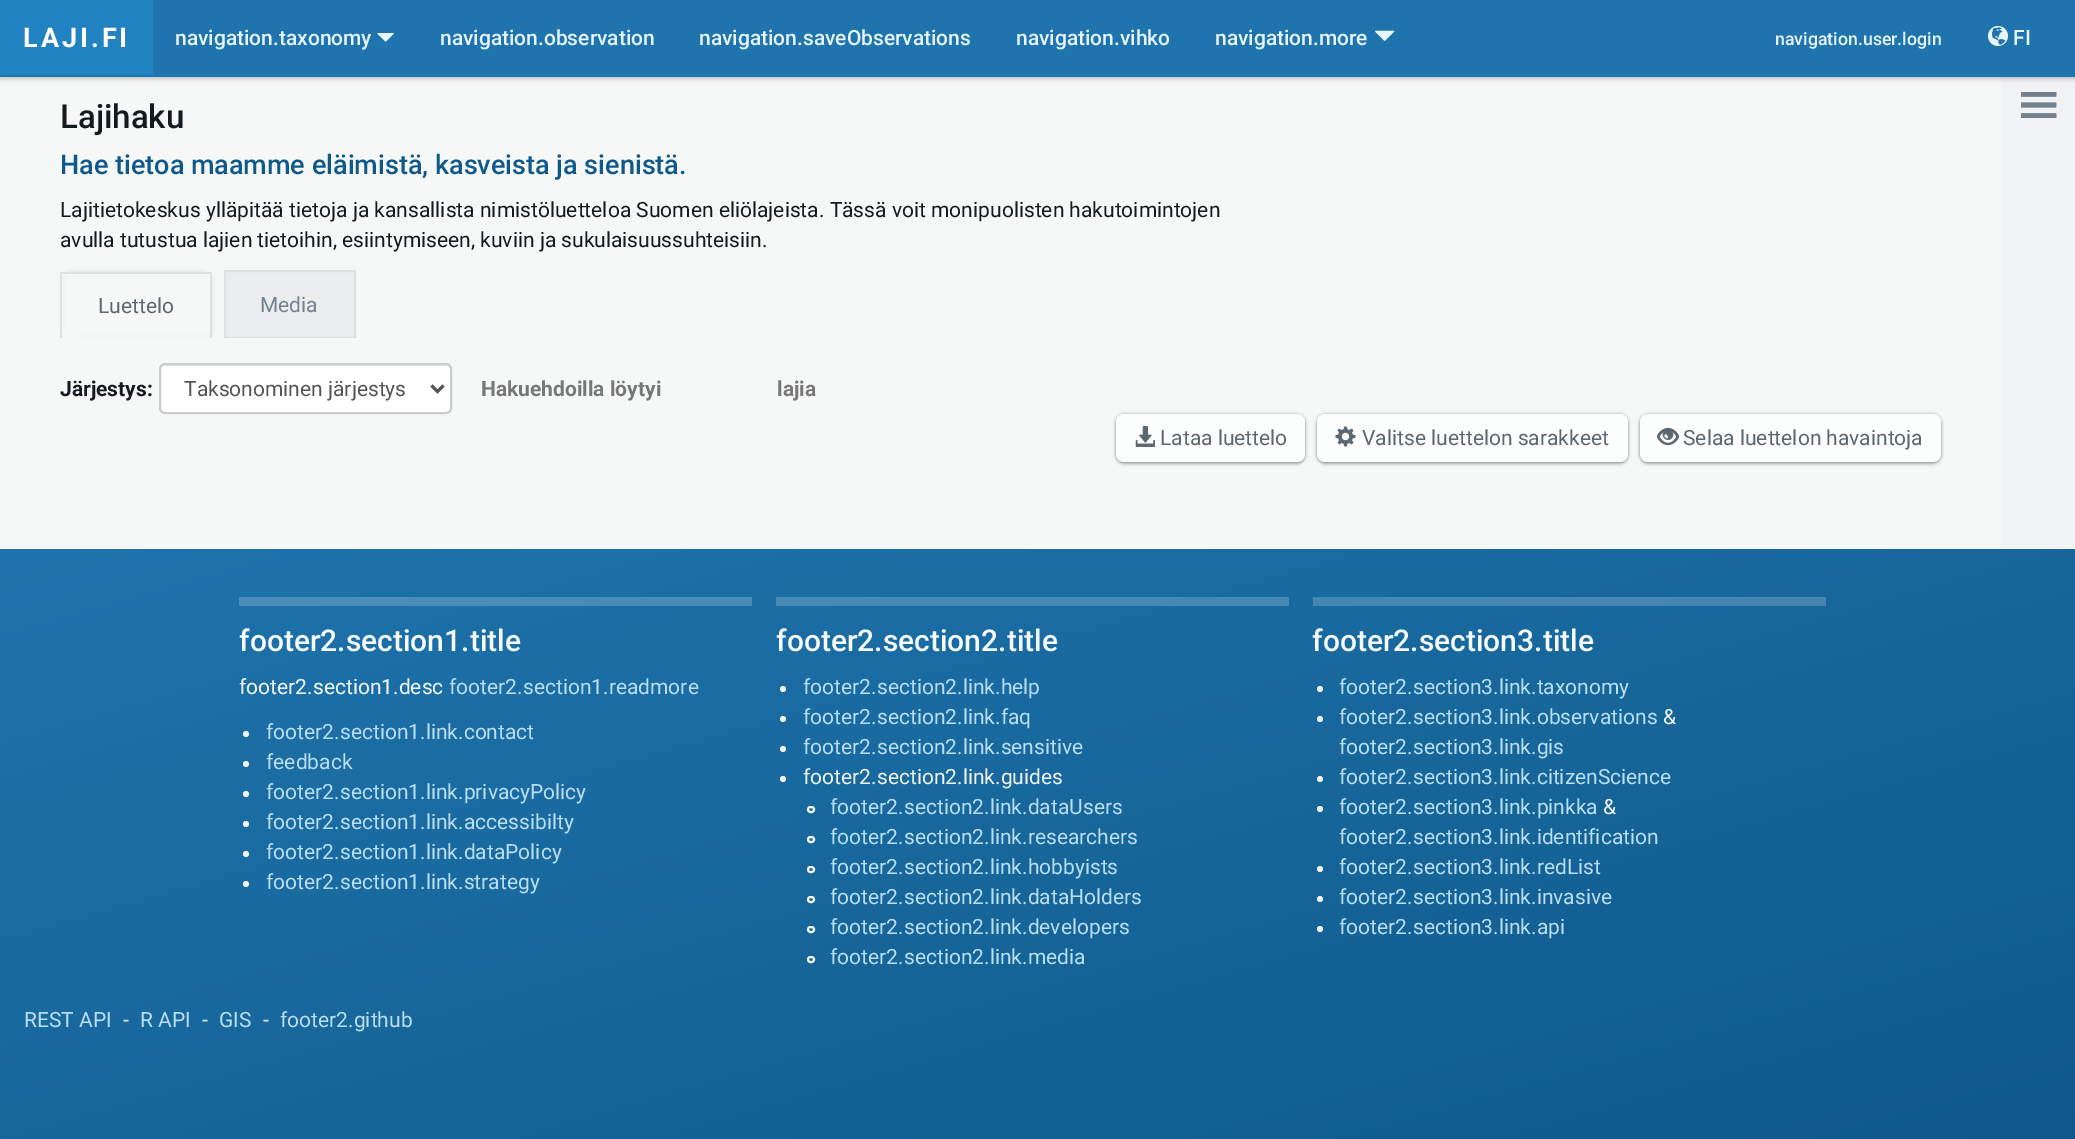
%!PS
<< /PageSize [2075 1139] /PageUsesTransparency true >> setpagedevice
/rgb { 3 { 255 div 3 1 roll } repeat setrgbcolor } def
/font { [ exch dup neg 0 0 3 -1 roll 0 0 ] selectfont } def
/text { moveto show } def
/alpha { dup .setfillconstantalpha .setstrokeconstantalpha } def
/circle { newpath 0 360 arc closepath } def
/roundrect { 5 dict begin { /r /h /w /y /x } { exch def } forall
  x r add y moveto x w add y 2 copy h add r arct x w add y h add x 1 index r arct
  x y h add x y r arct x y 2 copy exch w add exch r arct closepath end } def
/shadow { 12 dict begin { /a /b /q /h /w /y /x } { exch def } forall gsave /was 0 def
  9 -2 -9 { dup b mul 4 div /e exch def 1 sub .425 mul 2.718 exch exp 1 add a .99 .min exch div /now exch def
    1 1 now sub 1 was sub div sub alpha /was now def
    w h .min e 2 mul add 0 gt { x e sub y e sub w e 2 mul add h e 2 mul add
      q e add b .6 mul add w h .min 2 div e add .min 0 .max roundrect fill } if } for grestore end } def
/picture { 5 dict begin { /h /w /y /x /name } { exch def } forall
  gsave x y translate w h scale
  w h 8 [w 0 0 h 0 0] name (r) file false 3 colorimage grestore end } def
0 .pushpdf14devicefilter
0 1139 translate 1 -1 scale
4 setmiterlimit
246 248 248 rgb
0 0 2075 1139 rectfill
241 243 244 rgb
2001 77 74 472 rectfill
0 0 0 rgb
0 2 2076 76 0 3 0.3 shadow
31 116 173 rgb
0 0 2075 77 rectfill
34 131 195 rgb
0 0 153 75 rectfill
(img_01.rgb) 377 33 17 9 picture
(img_02.rgb) 1375 30 20 11 picture
(img_03.rgb) 1987 25 22 22 picture
0 0 0 rgb
68 272 136 54 0 2 0.1 shadow
75 279 137 54 0 2 0.1 shadow
246 248 248 rgb
66 274 144 61 rectfill
221 225 227 rgb
60 272 152 2 rectfill
210 272 2 66 rectfill
60 272 2 66 rectfill
235 238 239 rgb
226 272 128 65 rectfill
gsave
60 270 1881 68 rectclip
221 225 227 rgb
2 setlinewidth
225 271 130 67 rectstroke
grestore
255 255 255 rgb
159 363 293 51 6 roundrect fill
236 236 236 rgb
165 366 moveto 281 0 rlineto 2 0 4 2 4 4 rcurveto 0 -3 -2 -5 -5 -5 rcurveto -279 0 rlineto -2 0 -3 1 -4 2 rcurveto closepath fill
204 204 204 rgb
2 setlinewidth
160 364 291 49 5 roundrect stroke
85 85 85 rgb
3 setlinewidth
431.5 385.5 moveto 6 6 rlineto 6 -6 rlineto stroke
20 27 31 rgb
1116 414 189 48 8 1.5 0.3 shadow
1116 416 189 48 8 1.5 0.3 shadow
252 253 253 rgb
1116 414 189 48 8 roundrect fill
(img_04.rgb) 1135 426 20 21 picture
20 27 31 rgb
1317 414 311 48 8 1.5 0.3 shadow
1317 416 311 48 8 1.5 0.3 shadow
252 253 253 rgb
1317 414 311 48 8 roundrect fill
(img_05.rgb) 1335 426 21 21 picture
20 27 31 rgb
1640 414 301 48 8 1.5 0.3 shadow
1640 416 301 48 8 1.5 0.3 shadow
252 253 253 rgb
1640 414 301 48 8 roundrect fill
(img_06.rgb) 1656 427 24 19 picture
(img_07.rgb) 2021 92 36 26 picture
gsave 0 549 moveto 2075 0 rlineto 0 590 rlineto -2075 0 rlineto closepath clip newpath
<< /ShadingType 2 /ColorSpace /DeviceRGB /Coords [881 297 1195 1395] /Extend [true true] /Function << /FunctionType 2 /Domain [0 1] /C0 [0.122 0.455 0.678] /C1 [0.059 0.349 0.541] /N 1 >> >> shfill grestore
gsave 1313 597 moveto 513 0 rlineto 0 9 rlineto -513 0 rlineto closepath clip newpath
<< /ShadingType 2 /ColorSpace /DeviceRGB /Coords [881 297 1195 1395] /Extend [true true] /Function << /FunctionType 2 /Domain [0 1] /C0 [0.298 0.565 0.741] /C1 [0.247 0.478 0.631] /N 1 >> >> shfill grestore
gsave 776 597 moveto 513 0 rlineto 0 9 rlineto -513 0 rlineto closepath clip newpath
<< /ShadingType 2 /ColorSpace /DeviceRGB /Coords [881 297 1195 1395] /Extend [true true] /Function << /FunctionType 2 /Domain [0 1] /C0 [0.298 0.565 0.741] /C1 [0.247 0.478 0.631] /N 1 >> >> shfill grestore
gsave 239 597 moveto 513 0 rlineto 0 9 rlineto -513 0 rlineto closepath clip newpath
<< /ShadingType 2 /ColorSpace /DeviceRGB /Coords [881 297 1195 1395] /Extend [true true] /Function << /FunctionType 2 /Domain [0 1] /C0 [0.298 0.565 0.741] /C1 [0.247 0.478 0.631] /N 1 >> >> shfill grestore
241 243 244 rgb
246 734 3 circle fill
246 764 3 circle fill
246 794 3 circle fill
246 824 3 circle fill
246 854 3 circle fill
246 884 3 circle fill
783 689 3 circle fill
783 719 3 circle fill
783 749 3 circle fill
783 779 3 circle fill
2 setlinewidth
808 807 6 5 2.5 roundrect stroke
808 837 6 5 2.5 roundrect stroke
808 867 6 5 2.5 roundrect stroke
808 897 6 5 2.5 roundrect stroke
808 927 6 5 2.5 roundrect stroke
808 957 6 5 2.5 roundrect stroke
1320 689 3 circle fill
1320 719 3 circle fill
1320 779 3 circle fill
1320 809 3 circle fill
1320 869 3 circle fill
1320 899 3 circle fill
1320 929 3 circle fill
/Roboto-Bold 27 font
255 255 255 rgb
23 47 moveto 3 0 (LAJI.FI) ashow
/Roboto-Medium 21 font
231 245 254 rgb
(navigation.taxonomy) 175 45 text
(navigation.observation) 440 45 text
(navigation.saveObservations) 699 45 text
(navigation.vihko) 1016 45 text
(navigation.more) 1215 45 text
/Roboto-Medium 17.75 font
(navigation.user.login) 1775 45 text
/Roboto-Medium 21 font
(FI) 2013 45 text
/Roboto-Medium 33 font
20 27 31 rgb
(Lajihaku) 60 128 text
/Roboto-Medium 27 font
15 89 138 rgb
(Hae tietoa maamme eläimistä, kasveista ja sienistä.) 60 174 text
/Roboto-Regular 21 font
20 27 31 rgb
(Lajitietokeskus ylläpitää tietoja ja kansallista nimistöluetteloa Suomen eliölajeista. Tässä voit monipuolisten hakutoimintojen) 60 217 text
(avulla tutustua lajien tietoihin, esiintymiseen, kuviin ja sukulaisuussuhteisiin.) 60 247 text
92 104 112 rgb
(Luettelo) 98 313 text
115 130 140 rgb
(Media) 260 312 text
/Roboto-Bold 21 font
20 27 31 rgb
(Järjestys:) 60 396 text
/Roboto-Regular 21 font
85 85 85 rgb
(Taksonominen järjestys) 184 396 text
/Roboto-Bold 21 font
119 119 119 rgb
(Hakuehdoilla löytyi) 481 396 text
(lajia) 777 396 text
/Roboto-Regular 21 font
92 104 112 rgb
(Lataa luettelo) 1160 445 text
(Valitse luettelon sarakkeet) 1362 445 text
(Selaa luettelon havaintoja) 1683 445 text
/Roboto-Medium 30 font
245 251 255 rgb
(footer2.section1.title) 239 651 text
/Roboto-Regular 21 font
(footer2.section1.desc) 239 694 text
186 223 247 rgb
(footer2.section1.readmore) 449 694 text
(footer2.section1.link.contact) 266 739 text
(feedback) 266 769 text
(footer2.section1.link.privacyPolicy) 266 799 text
(footer2.section1.link.accessibilty) 266 829 text
(footer2.section1.link.dataPolicy) 266 859 text
(footer2.section1.link.strategy) 266 889 text
/Roboto-Medium 30 font
245 251 255 rgb
(footer2.section2.title) 776 651 text
/Roboto-Regular 21 font
186 223 247 rgb
(footer2.section2.link.help) 803 694 text
(footer2.section2.link.faq) 803 724 text
(footer2.section2.link.sensitive) 803 754 text
241 243 244 rgb
(footer2.section2.link.guides) 803 784 text
186 223 247 rgb
(footer2.section2.link.dataUsers) 830 814 text
(footer2.section2.link.researchers) 830 844 text
(footer2.section2.link.hobbyists) 830 874 text
(footer2.section2.link.dataHolders) 830 904 text
(footer2.section2.link.developers) 830 934 text
(footer2.section2.link.media) 830 964 text
/Roboto-Medium 30 font
245 251 255 rgb
(footer2.section3.title) 1312 651 text
/Roboto-Regular 21 font
186 223 247 rgb
(footer2.section3.link.taxonomy) 1339 694 text
(footer2.section3.link.observations) 1339 724 text
241 243 244 rgb
(&) 1663 724 text
186 223 247 rgb
(footer2.section3.link.gis) 1339 754 text
(footer2.section3.link.citizenScience) 1339 784 text
(footer2.section3.link.pinkka) 1339 814 text
241 243 244 rgb
(&) 1603 814 text
186 223 247 rgb
(footer2.section3.link.identification) 1339 844 text
(footer2.section3.link.redList) 1339 874 text
(footer2.section3.link.invasive) 1339 904 text
(footer2.section3.link.api) 1339 934 text
(REST API) 24 1027 text
221 225 227 rgb
(-) 123 1027 text
186 223 247 rgb
(R API) 140 1027 text
221 225 227 rgb
(-) 202 1027 text
186 223 247 rgb
(GIS) 219 1027 text
221 225 227 rgb
(-) 263 1027 text
186 223 247 rgb
(footer2.github) 280 1027 text
.poppdf14devicefilter showpage
